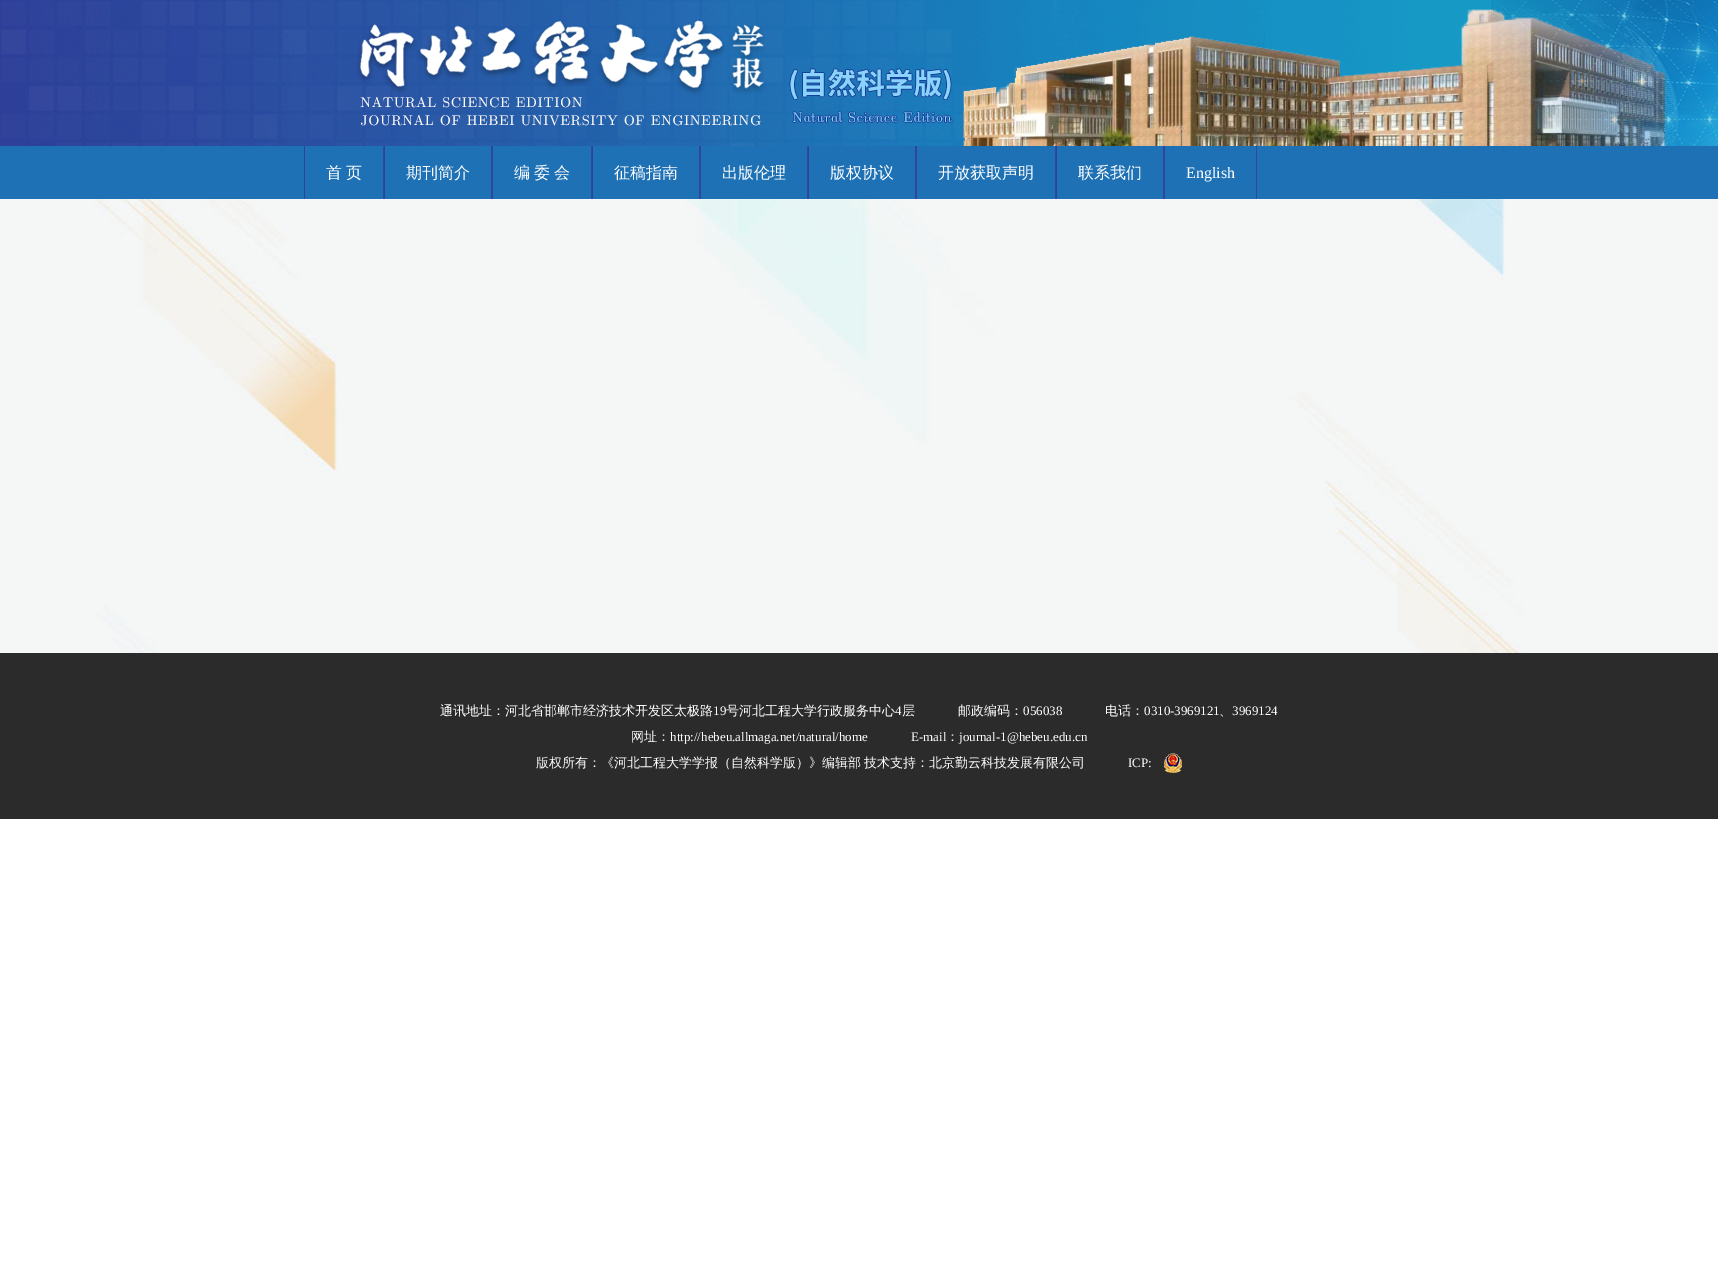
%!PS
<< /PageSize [1718 1288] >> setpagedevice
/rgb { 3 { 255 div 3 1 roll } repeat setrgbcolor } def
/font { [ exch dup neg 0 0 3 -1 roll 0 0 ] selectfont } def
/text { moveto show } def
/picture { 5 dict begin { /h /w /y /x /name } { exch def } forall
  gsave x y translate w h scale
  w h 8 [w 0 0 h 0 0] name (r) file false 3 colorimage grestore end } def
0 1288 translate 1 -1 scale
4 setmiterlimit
255 255 255 rgb
0 0 1718 1288 rectfill
(img_01.rgb) 0 0 1718 146 picture
29 113 180 rgb
0 146 1718 53 rectfill
50 71 157 rgb
383 146 1 53 rectfill
47 67 155 rgb
304 146 1 53 rectfill
50 71 157 rgb
491 146 1 53 rectfill
47 67 155 rgb
384 146 1 53 rectfill
50 71 157 rgb
591 146 1 53 rectfill
47 67 155 rgb
492 146 1 53 rectfill
50 71 157 rgb
699 146 1 53 rectfill
47 67 155 rgb
592 146 1 53 rectfill
50 71 157 rgb
807 146 1 53 rectfill
47 67 155 rgb
700 146 1 53 rectfill
50 71 157 rgb
915 146 1 53 rectfill
47 67 155 rgb
808 146 1 53 rectfill
50 71 157 rgb
1055 146 1 53 rectfill
47 67 155 rgb
916 146 1 53 rectfill
50 71 157 rgb
1163 146 1 53 rectfill
47 67 155 rgb
1056 146 1 53 rectfill
50 71 157 rgb
1256 146 1 53 rectfill
47 67 155 rgb
1164 146 1 53 rectfill
245 247 246 rgb
0 199 1718 454 rectfill
(img_02.rgb) 94 199 1430 454 picture
43 43 43 rgb
0 653 1718 166 rectfill
(img_03.rgb) 1164 753 18 20 picture
/WenQuanYiZenHei-Medium 16 font
255 255 255 rgb
(首) 326 178 text
(页) 346 178 text
(期刊简介) 406 178 text
514 178 moveto -1 0 32 (编 委 会) widthshow
(征稿指南) 614 178 text
(出版伦理) 722 178 text
(版权协议) 830 178 text
(开放获取声明) 938 178 text
(联系我们) 1078 178 text
/LiberationSerif-Regular 16 font
(English) 1186 178 text
/WenQuanYiZenHei-Medium 13 font
(通讯地址：河北省邯郸市经济技术开发区太极路) 440 715 text
/LiberationSerif-Regular 13 font
(19) 713 715 text
/WenQuanYiZenHei-Medium 13 font
(号河北工程大学行政服务中心) 726 715 text
/LiberationSerif-Regular 13 font
(4) 895 715 text
/WenQuanYiZenHei-Medium 13 font
(层) 902 715 text
(邮政编码：) 958 715 text
/LiberationSerif-Regular 13 font
(056038) 1023 715 text
/WenQuanYiZenHei-Medium 13 font
(电话：) 1105 715 text
/LiberationSerif-Regular 13 font
(0310-3969121) 1144 715 text
/WenQuanYiZenHei-Medium 13 font
(、) 1219 715 text
/LiberationSerif-Regular 13 font
(3969124) 1232 715 text
/WenQuanYiZenHei-Medium 13 font
(网址：) 631 741 text
/LiberationSerif-Regular 13 font
(http://hebeu.allmaga.net/natural/home) 670 741 text
(E-mail) 911 741 text
/WenQuanYiZenHei-Medium 13 font
(：) 946 741 text
/LiberationSerif-Regular 13 font
(journal-1@hebeu.edu.cn) 959 741 text
/WenQuanYiZenHei-Medium 13 font
(版权所有：《河北工程大学学报（自然科学版）》编辑部) 536 767 text
(技术支持：北京勤云科技发展有限公司) 864 767 text
/LiberationSerif-Regular 13 font
(ICP:) 1128 767 text
showpage
